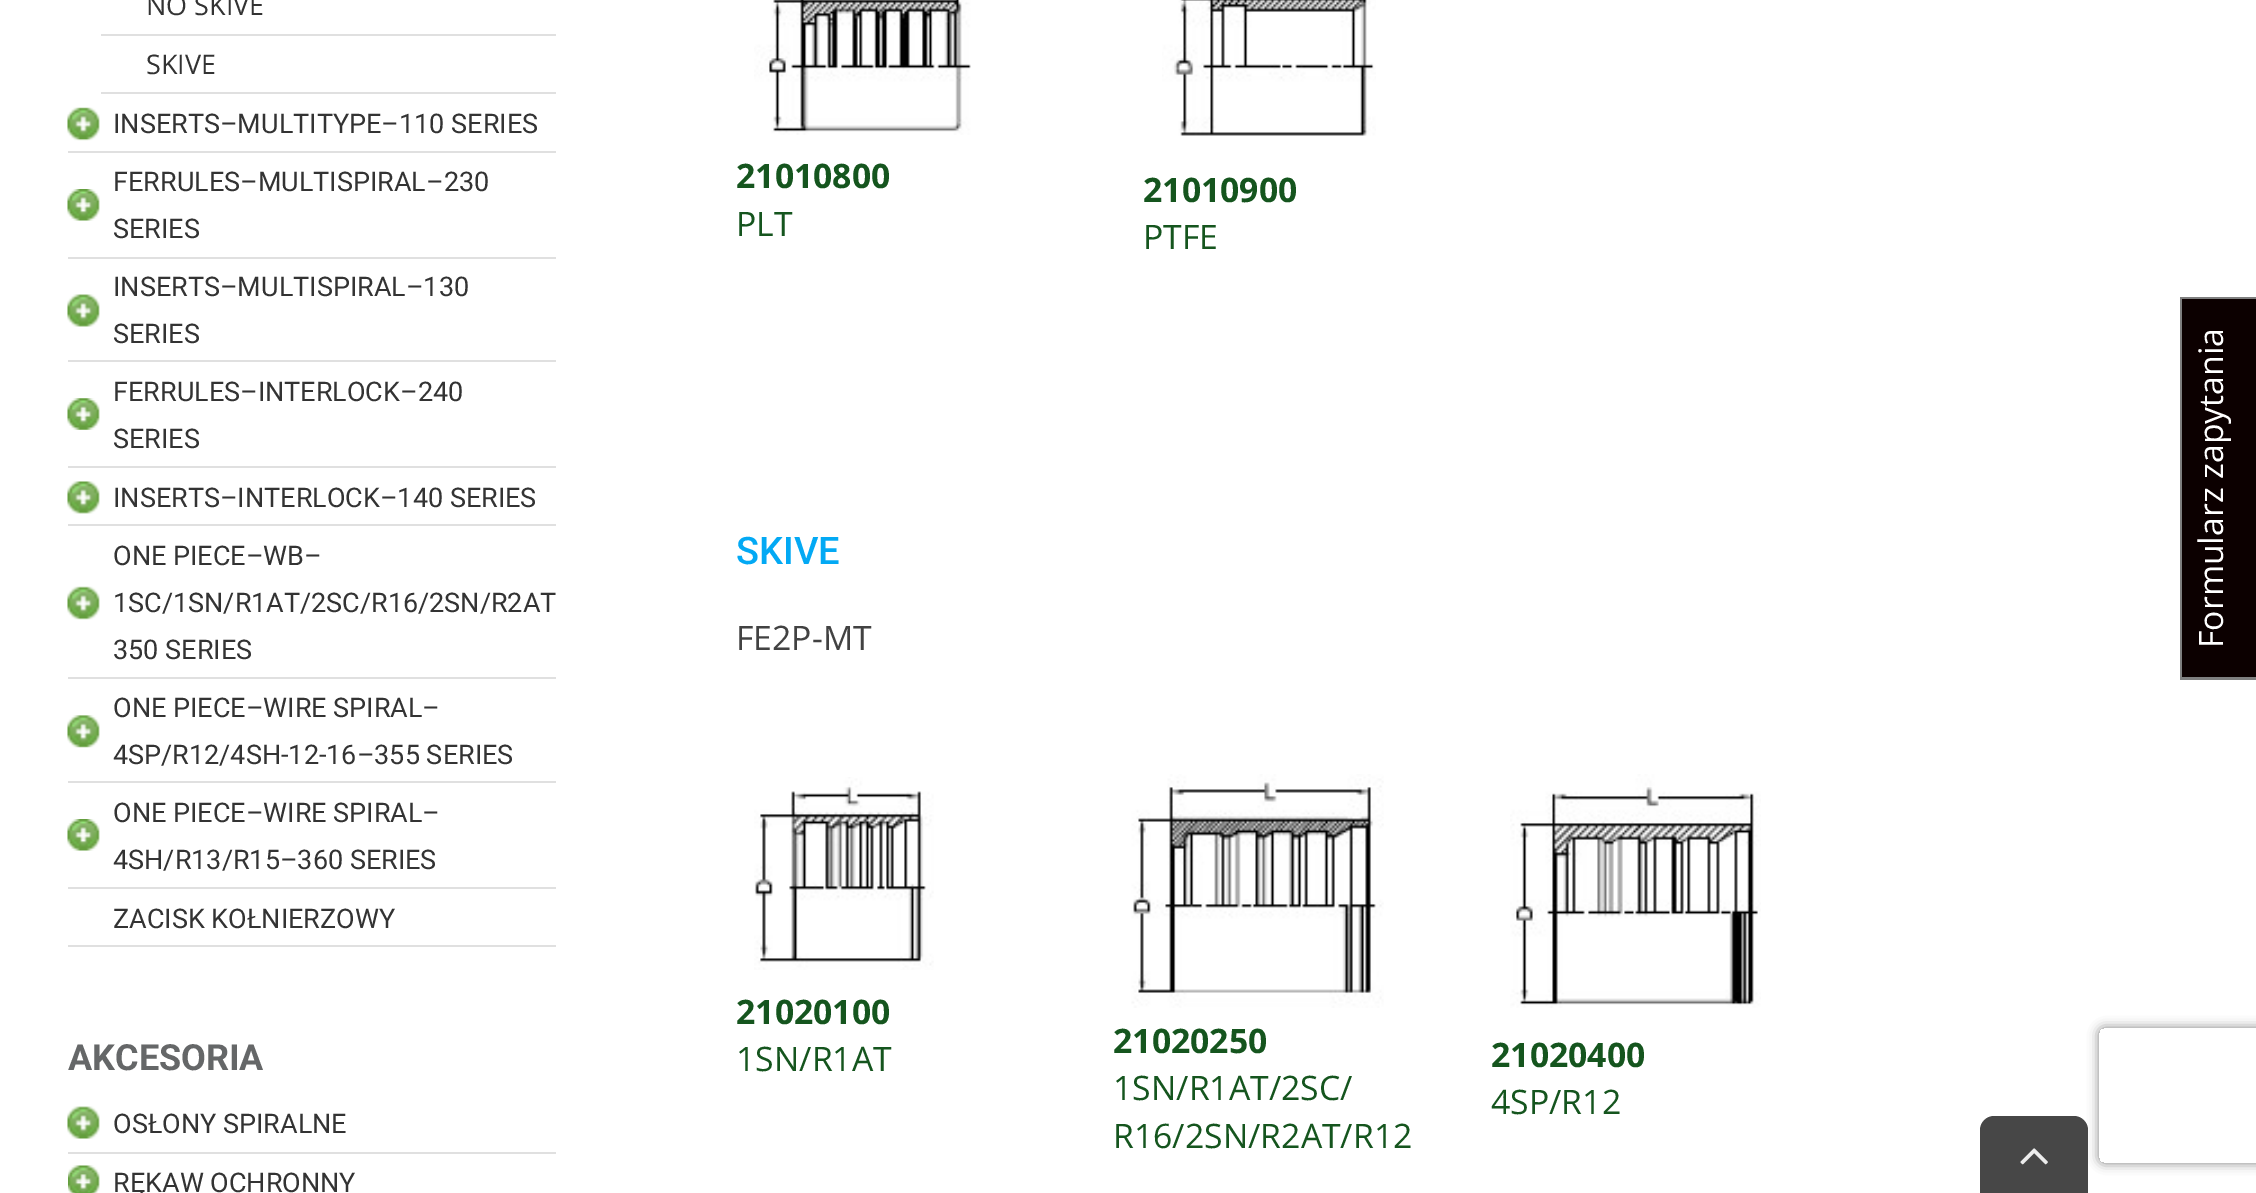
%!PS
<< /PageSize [2256 1193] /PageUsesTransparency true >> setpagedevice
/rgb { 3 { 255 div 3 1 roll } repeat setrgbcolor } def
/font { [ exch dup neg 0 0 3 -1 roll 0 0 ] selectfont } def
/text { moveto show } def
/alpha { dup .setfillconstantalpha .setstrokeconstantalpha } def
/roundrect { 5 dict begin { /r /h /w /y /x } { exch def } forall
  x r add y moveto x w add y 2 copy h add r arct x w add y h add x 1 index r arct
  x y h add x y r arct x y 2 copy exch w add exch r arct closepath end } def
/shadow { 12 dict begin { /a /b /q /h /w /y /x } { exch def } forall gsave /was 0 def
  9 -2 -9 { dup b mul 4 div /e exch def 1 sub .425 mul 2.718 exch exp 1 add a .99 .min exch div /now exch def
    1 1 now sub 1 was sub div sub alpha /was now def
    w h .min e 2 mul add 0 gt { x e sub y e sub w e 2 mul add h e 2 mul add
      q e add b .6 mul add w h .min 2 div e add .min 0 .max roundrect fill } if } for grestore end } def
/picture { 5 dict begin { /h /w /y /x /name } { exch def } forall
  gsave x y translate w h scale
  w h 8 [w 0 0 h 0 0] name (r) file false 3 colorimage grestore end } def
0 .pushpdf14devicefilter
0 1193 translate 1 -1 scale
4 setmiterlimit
255 255 255 rgb
0 0 2256 1193 rectfill
224 224 224 rgb
101 34 455 2 rectfill
101 92 455 2 rectfill
(img_01.rgb) 67 107 33 34 picture
68 151 488 2 rectfill
(img_02.rgb) 67 189 33 32 picture
68 257 488 2 rectfill
(img_03.rgb) 67 294 33 33 picture
68 360 488 2 rectfill
(img_04.rgb) 67 398 33 32 picture
68 466 488 2 rectfill
(img_05.rgb) 67 481 33 33 picture
68 524 488 2 rectfill
(img_06.rgb) 67 586 33 34 picture
68 677 488 2 rectfill
(img_07.rgb) 67 715 33 33 picture
68 781 488 2 rectfill
(img_02.rgb) 67 819 33 32 picture
68 887 488 2 rectfill
68 945 488 2 rectfill
(img_08.rgb) 67 1106 33 33 picture
68 1152 488 2 rectfill
(img_09.rgb) 68 1165 32 28 picture
(img_10.rgb) 754 0 217 135 picture
(img_11.rgb) 1162 0 214 136 picture
(img_12.rgb) 754 777 180 193 picture
(img_13.rgb) 1131 774 253 234 picture
(img_14.rgb) 1510 774 251 234 picture
12 0 0 rgb
2182 299 74 378 rectfill
127 127 127 rgb
2180 297 2 383 rectfill
2180 297 76 2 rectfill
2180 677 76 3 rectfill
gsave
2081 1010 moveto 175 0 rlineto 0 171 rlineto -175 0 rlineto closepath 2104 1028 moveto 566 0 rlineto 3 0 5 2 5 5 rcurveto 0 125 rlineto 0 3 -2 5 -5 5 rcurveto -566 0 rlineto -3 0 -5 -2 -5 -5 rcurveto 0 -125 rlineto 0 -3 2 -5 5 -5 rcurveto closepath eoclip newpath
128 128 128 rgb
2099 1028 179 135 5 5.5 1 shadow
grestore
71 71 71 rgb
1994 1116 moveto 80 0 rlineto 7.5 0 14 6.5 14 14 rcurveto 0 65 rlineto -108 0 rlineto 0 -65 rlineto 0 -7.5 6.5 -14 14 -14 rcurveto closepath fill
(img_15.rgb) 2020 1148 28 17 picture
/OpenSans-Regular 27 font
51 51 51 rgb
(NO SKIVE) 146 15 text
(SKIVE) 146 74 text
/Roboto-Regular 27 font
(INSERTS–MULTITYPE–110 SERIES) 113 133 text
(FERRULES–MULTISPIRAL–230) 113 191 text
(SERIES) 113 238 text
(INSERTS–MULTISPIRAL–130) 113 296 text
(SERIES) 113 343 text
(FERRULES–INTERLOCK–240) 113 401 text
(SERIES) 113 448 text
(INSERTS–INTERLOCK–140 SERIES) 113 507 text
(ONE PIECE–WB–) 113 565 text
(1SC/1SN/R1AT/2SC/R16/2SN/R2AT) 113 612 text
(350 SERIES) 113 659 text
(ONE PIECE–WIRE SPIRAL–) 113 717 text
(4SP/R12/4SH-12-16–355 SERIES) 113 764 text
(ONE PIECE–WIRE SPIRAL–) 113 822 text
(4SH/R13/R15–360 SERIES) 113 869 text
(ZACISK KOŁNIERZOWY) 113 928 text
/Roboto-Bold 36 font
101 103 104 rgb
(AKCESORIA) 68 1070 text
/Roboto-Regular 27 font
51 51 51 rgb
(OSŁONY SPIRALNE) 113 1133 text
(RĘKAW OCHRONNY) 113 1192 text
/OpenSans-Bold 33.75 font
21 85 30 rgb
(21010800) 736 188 text
/OpenSans-Regular 33.75 font
(PLT) 736 236 text
/OpenSans-Bold 33.75 font
(21010900) 1143 202 text
/OpenSans-Regular 33.75 font
(PTFE) 1143 249 text
/Roboto-Medium 38 font
3 169 244 rgb
(SKIVE) 736 564 text
/OpenSans-Regular 33.75 font
66 66 66 rgb
(FE2P-MT) 736 650 text
/OpenSans-Bold 33.75 font
21 85 30 rgb
(21020100) 736 1024 text
/OpenSans-Regular 33.75 font
(1SN/R1AT) 736 1071 text
/OpenSans-Bold 33.75 font
(21020250) 1113 1053 text
/OpenSans-Regular 33.75 font
(1SN/R1AT/2SC/) 1113 1100 text
(R16/2SN/R2AT/R12) 1113 1148 text
/OpenSans-Bold 33.75 font
(21020400) 1491 1067 text
/OpenSans-Regular 33.75 font
(4SP/R12) 1491 1114 text
255 255 255 rgb
gsave 2223 648 translate -90 rotate 0 0 moveto (Formularz zapytania) show grestore
.poppdf14devicefilter showpage
